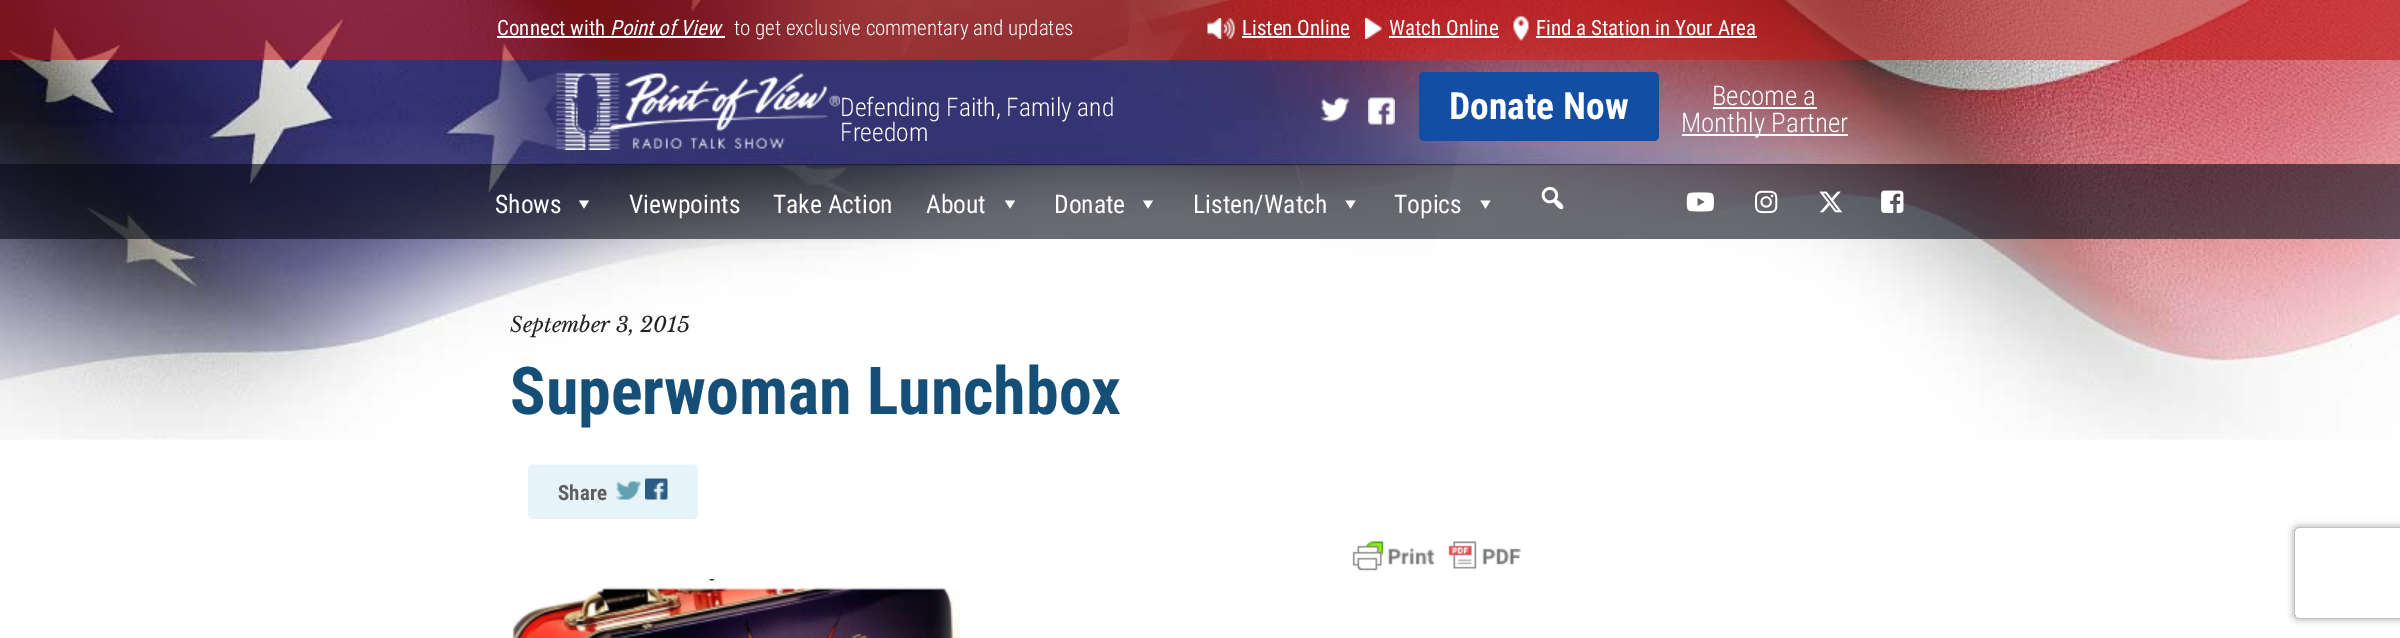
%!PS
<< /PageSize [2400 638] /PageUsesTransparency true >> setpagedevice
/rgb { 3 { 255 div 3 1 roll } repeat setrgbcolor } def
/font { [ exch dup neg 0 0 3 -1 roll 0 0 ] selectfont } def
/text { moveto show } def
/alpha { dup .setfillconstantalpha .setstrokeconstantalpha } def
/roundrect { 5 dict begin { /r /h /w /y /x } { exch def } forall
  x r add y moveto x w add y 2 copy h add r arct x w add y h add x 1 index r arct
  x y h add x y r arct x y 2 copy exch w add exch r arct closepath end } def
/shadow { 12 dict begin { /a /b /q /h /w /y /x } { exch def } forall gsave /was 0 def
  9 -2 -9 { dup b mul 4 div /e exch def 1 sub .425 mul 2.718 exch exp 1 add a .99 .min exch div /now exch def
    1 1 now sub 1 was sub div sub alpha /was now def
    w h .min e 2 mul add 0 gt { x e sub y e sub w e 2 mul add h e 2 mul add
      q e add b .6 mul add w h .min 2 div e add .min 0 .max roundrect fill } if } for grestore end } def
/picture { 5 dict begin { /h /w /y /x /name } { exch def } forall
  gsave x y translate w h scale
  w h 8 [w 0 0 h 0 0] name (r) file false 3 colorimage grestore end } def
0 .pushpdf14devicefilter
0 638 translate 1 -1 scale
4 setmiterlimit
255 255 255 rgb
0 0 2400 638 rectfill
(img_01.rgb) 0 0 2400 440 picture
0.6 alpha
193 27 27 rgb
0 0 2400 60 rectfill
1 alpha
255 255 255 rgb
497 36 228 2 rectfill
(img_02.rgb) 1207 18 28 21 picture
1242 36 108 2 rectfill
(img_03.rgb) 1365 18 17 21 picture
1389 36 110 2 rectfill
(img_04.rgb) 1513 16 16 25 picture
1536 36 221 2 rectfill
(img_05.rgb) 556 72 284 78 picture
(img_06.rgb) 1320 97 30 25 picture
(img_07.rgb) 1368 97 27 28 picture
19 77 164 rgb
1419 72 240 69 5 roundrect fill
255 255 255 rgb
1713 107 104 2 rectfill
1682 134 166 2 rectfill
0.6 alpha
6 8 21 rgb
0 164 2400 75 rectfill
1 alpha
255 255 255 rgb
589 200.5 moveto -5 8 rlineto -5 -8 rlineto closepath fill
1015 200.5 moveto -5 8 rlineto -5 -8 rlineto closepath fill
1153 200.5 moveto -5 8 rlineto -5 -8 rlineto closepath fill
1355.5 200.5 moveto -5 8 rlineto -5 -8 rlineto closepath fill
1490.5 200.5 moveto -5 8 rlineto -5 -8 rlineto closepath fill
(img_08.rgb) 1541 186 23 24 picture
(img_09.rgb) 1686 192 28 20 picture
(img_10.rgb) 1755 190 23 24 picture
(img_11.rgb) 1819 191 24 22 picture
(img_12.rgb) 1881 190 23 23 picture
230 243 248 rgb
528 464 170 55 5 roundrect fill
0.5 alpha
255 255 255 rgb
532 465 moveto 161 0 rlineto 2 0 5 2 5 5 rcurveto 0 -1 rlineto 0 -3 -2 -5 -5 -5 rcurveto -160 0 rlineto -3 0 -5 2 -5 5 rcurveto 0 1 rlineto 0 -3 2 -5 4 -5 rcurveto closepath fill
1 alpha
(img_13.rgb) 616 481 25 19 picture
(img_14.rgb) 645 478 23 22 picture
(img_15.rgb) 1352 541 170 30 picture
(img_16.rgb) 512 579 448 59 picture
gsave
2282 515 moveto 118 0 rlineto 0 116 rlineto -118 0 rlineto closepath 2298 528 moveto 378 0 rlineto 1.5 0 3 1.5 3 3 rcurveto 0 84 rlineto 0 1.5 -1.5 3 -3 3 rcurveto -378 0 rlineto -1.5 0 -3 -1.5 -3 -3 rcurveto 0 -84 rlineto 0 -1.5 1.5 -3 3 -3 rcurveto closepath eoclip newpath
128 128 128 rgb
2295 528 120 90 3 4 1 shadow
grestore
/RobotoCondensed-Regular 21 font
(Connect with) 497 35 text
/RobotoCondensed-Italic 21 font
(Point of View) 610 35 text
/RobotoCondensed-Light 21 font
(to get exclusive commentary and updates) 734 35 text
/RobotoCondensed-Regular 21 font
(Listen Online) 1242 35 text
(Watch Online) 1389 35 text
(Find a Station in Your Area) 1536 35 text
/RobotoCondensed-Light 25.5 font
(Defending Faith, Family and) 840 116 text
(Freedom) 840 141 text
/RobotoCondensed-Bold 37.5 font
(Donate Now) 1449 119 text
/RobotoCondensed-Light 27 font
(Become a) 1712 105 text
(Monthly Partner) 1681 132 text
/RobotoCondensed-Regular 25.5 font
(Shows) 495 213 text
(Viewpoints) 629 213 text
(Take Action) 773 213 text
(About) 926 213 text
(Donate) 1054 213 text
(Listen/Watch) 1193 213 text
(Topics) 1394 213 text
/LibreBaskerville-Italic 21 font
34 34 34 rgb
(September 3, 2015) 510 332 text
/RobotoCondensed-Bold 66 font
21 78 118 rgb
(Superwoman Lunchbox) 510 414 text
/RobotoCondensed-Bold 21 font
95 95 95 rgb
(Share) 558 500 text
.poppdf14devicefilter showpage
